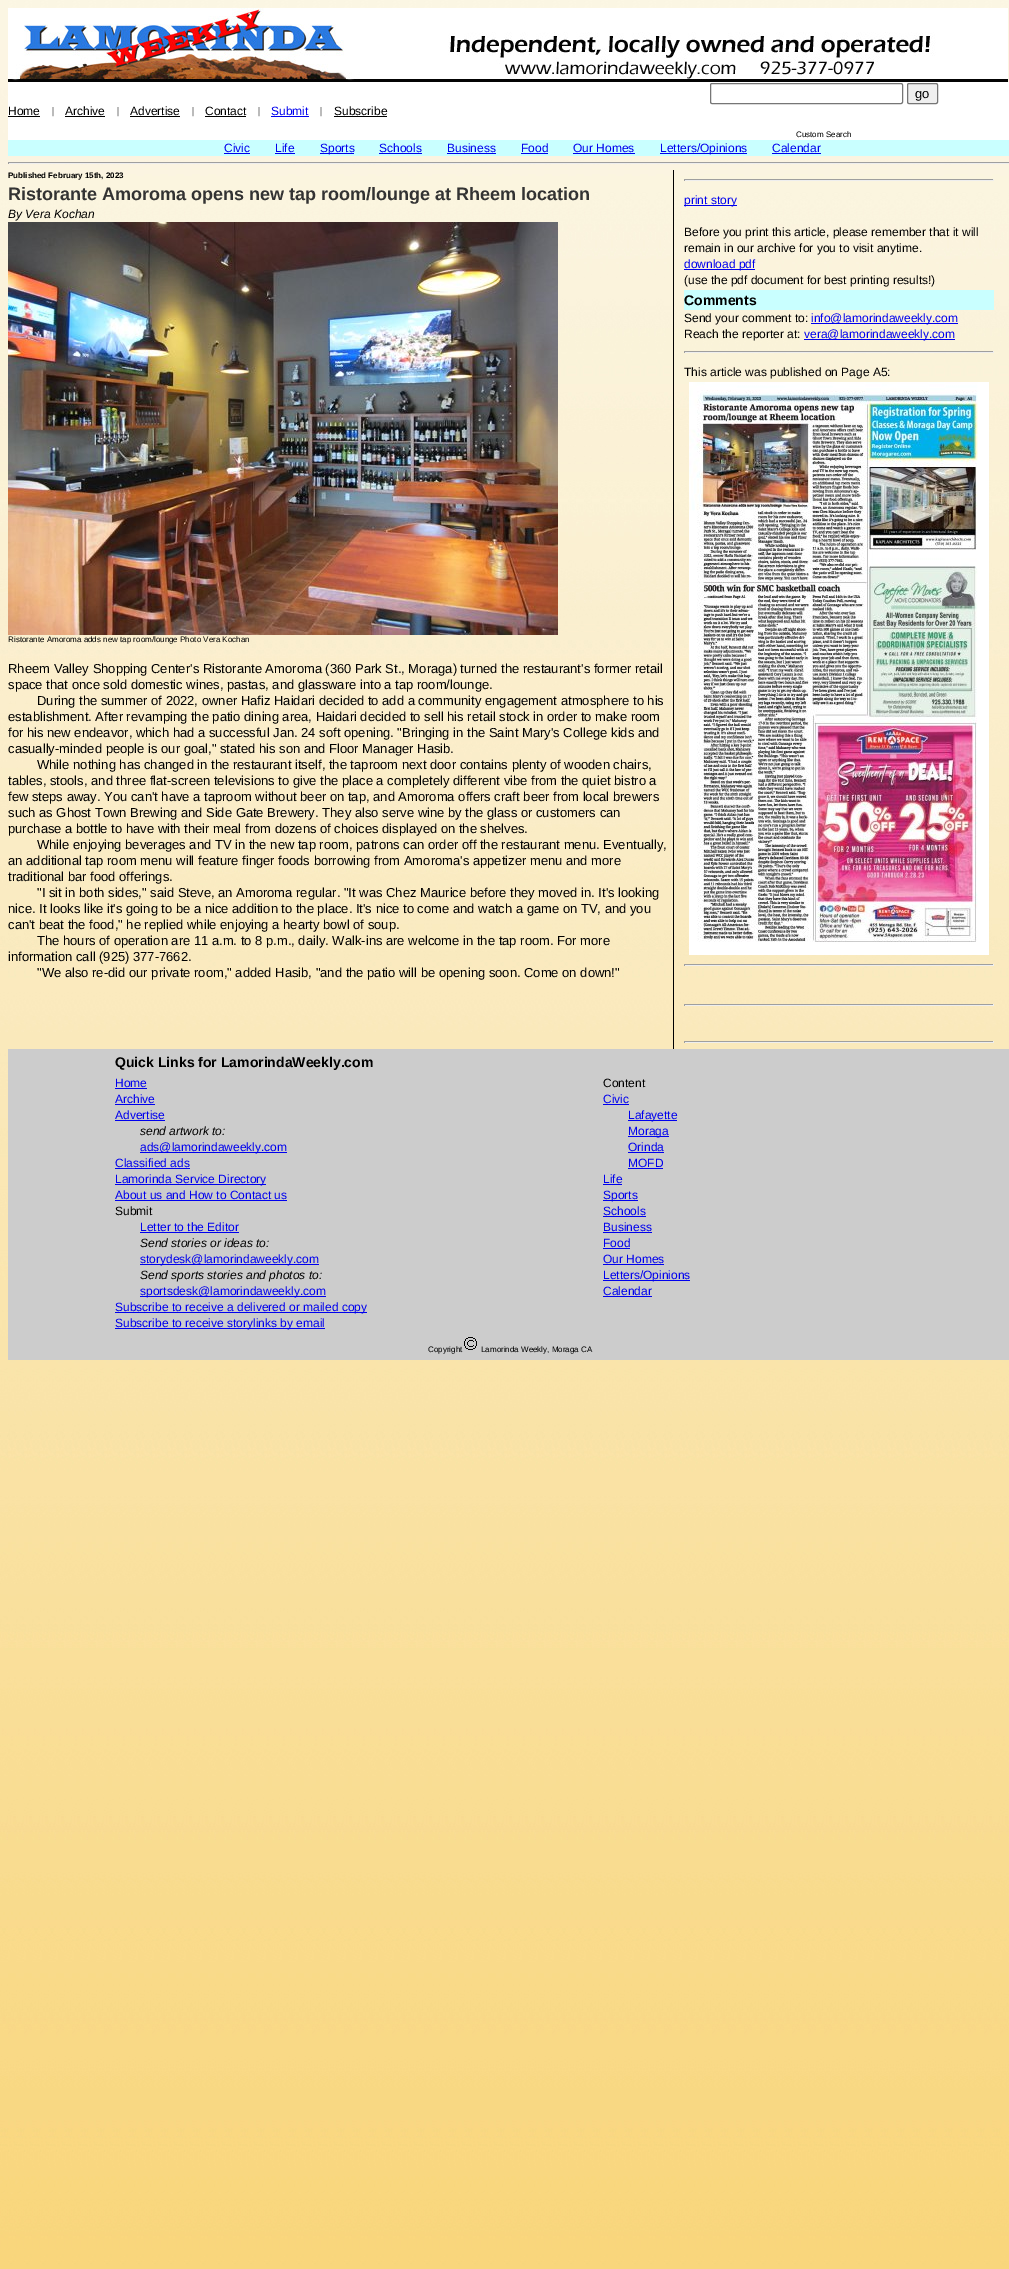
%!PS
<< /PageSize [1009 2269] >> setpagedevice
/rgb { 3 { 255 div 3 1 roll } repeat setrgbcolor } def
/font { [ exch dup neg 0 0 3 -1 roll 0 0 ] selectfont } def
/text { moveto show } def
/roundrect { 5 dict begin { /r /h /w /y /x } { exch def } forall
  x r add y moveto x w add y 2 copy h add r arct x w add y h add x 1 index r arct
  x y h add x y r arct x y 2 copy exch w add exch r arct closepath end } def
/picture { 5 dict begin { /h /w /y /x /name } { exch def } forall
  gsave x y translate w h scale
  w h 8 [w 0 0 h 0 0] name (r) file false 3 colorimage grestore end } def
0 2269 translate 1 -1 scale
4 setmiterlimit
255 255 255 rgb
0 0 1009 2269 rectfill
(img_01.rgb) 0 0 1009 2269 picture
(img_02.rgb) 8 8 1000 74 picture
201 255 255 rgb
8 140 1001 16 rectfill
255 255 255 rgb
8 82 1001 58 rectfill
0 0 0 rgb
8 116 32 1 rectfill
65 116 40 1 rectfill
130 116 50 1 rectfill
205 116 41 1 rectfill
0 0 238 rgb
271 116 38 1 rectfill
0 0 0 rgb
334 116 53 1 rectfill
118 118 118 rgb
710.5 83.5 192 20 1.5 roundrect stroke
239 239 239 rgb
907.5 83.5 30 20 1.5 roundrect gsave fill grestore
118 118 118 rgb
stroke
0 0 238 rgb
224 153 26 1 rectfill
275 153 20 1 rectfill
320 153 34 1 rectfill
379 153 43 1 rectfill
447 153 49 1 rectfill
521 153 27 1 rectfill
573 153 62 1 rectfill
660 153 87 1 rectfill
772 153 49 1 rectfill
159 159 159 rgb
8 162 1001 1 rectfill
238 238 238 rgb
8 163 1001 1 rectfill
159 159 159 rgb
8 162 1 2 rectfill
(img_03.rgb) 8 222 550 413 picture
0 0 0 rgb
673 170 1 879 rectfill
159 159 159 rgb
684 179 310 1 rectfill
238 238 238 rgb
993 179 1 2 rectfill
684 180 310 1 rectfill
159 159 159 rgb
684 179 1 2 rectfill
0 0 238 rgb
684 205 53 1 rectfill
684 269 71 1 rectfill
201 255 255 rgb
684 290 310 20 rectfill
0 0 238 rgb
811 323 147 1 rectfill
804 339 151 1 rectfill
159 159 159 rgb
684 351 310 1 rectfill
238 238 238 rgb
993 351 1 2 rectfill
684 352 310 1 rectfill
159 159 159 rgb
684 351 1 2 rectfill
(img_04.rgb) 689 382 300 573 picture
684 964 310 1 rectfill
238 238 238 rgb
993 964 1 2 rectfill
684 965 310 1 rectfill
159 159 159 rgb
684 964 1 2 rectfill
684 1004 310 1 rectfill
238 238 238 rgb
993 1004 1 2 rectfill
684 1005 310 1 rectfill
159 159 159 rgb
684 1004 1 2 rectfill
684 1041 310 1 rectfill
238 238 238 rgb
993 1041 1 2 rectfill
684 1042 310 1 rectfill
159 159 159 rgb
684 1041 1 2 rectfill
204 204 204 rgb
8 1049 1001 311 rectfill
0 0 238 rgb
115 1088 32 1 rectfill
115 1104 40 1 rectfill
115 1120 50 1 rectfill
140 1152 147 1 rectfill
115 1168 75 1 rectfill
115 1184 151 1 rectfill
115 1200 172 1 rectfill
140 1232 99 1 rectfill
140 1264 179 1 rectfill
140 1296 186 1 rectfill
115 1312 252 1 rectfill
115 1328 210 1 rectfill
603 1104 26 1 rectfill
628 1120 49 1 rectfill
628 1136 41 1 rectfill
628 1152 36 1 rectfill
628 1168 35 1 rectfill
603 1184 19 1 rectfill
603 1200 35 1 rectfill
603 1216 43 1 rectfill
603 1232 49 1 rectfill
603 1248 27 1 rectfill
603 1264 61 1 rectfill
603 1280 87 1 rectfill
603 1296 49 1 rectfill
(img_05.rgb) 464 1337 13 13 picture
/LiberationSans-Regular 12 font
0 0 0 rgb
(Home) 8 115 text
/LiberationSerif-Regular 10 font
(|) 52 114 text
/LiberationSans-Regular 12 font
(Archive) 65 115 text
/LiberationSerif-Regular 10 font
(|) 117 114 text
/LiberationSans-Regular 12 font
(Advertise) 130 115 text
/LiberationSerif-Regular 10 font
(|) 192 114 text
/LiberationSans-Regular 12 font
(Contact) 205 115 text
/LiberationSerif-Regular 10 font
(|) 258 114 text
/LiberationSans-Regular 12 font
0 0 238 rgb
(Submit) 271 115 text
/LiberationSerif-Regular 10 font
0 0 0 rgb
(|) 320 114 text
/LiberationSans-Regular 12 font
(Subscribe) 334 115 text
/LiberationSans-Regular 13 font
(go) 915 98 text
/LiberationSans-Regular 8 font
(Custom Search) 796 137 text
/LiberationSans-Regular 12 font
0 0 238 rgb
(Civic) 224 152 text
(Life) 275 152 text
(Sports) 320 152 text
(Schools) 379 152 text
(Business) 447 152 text
(Food) 521 152 text
(Our Homes) 573 152 text
(Letters/Opinions) 660 152 text
(Calendar) 772 152 text
/LiberationSans-Bold 8 font
0 0 0 rgb
(Published February 15th, 2023) 8 178 text
/LiberationSans-Bold 18 font
51 51 51 rgb
(Ristorante Amoroma opens new tap room/lounge at Rheem location) 8 200 text
/LiberationSans-Italic 12 font
0 0 0 rgb
(By Vera Kochan) 8 218 text
/LiberationSans-Regular 8 font
(Ristorante Amoroma adds new tap room/lounge Photo Vera Kochan) 8 642 text
/LiberationSans-Regular 13 font
(Rheem Valley Shopping Center's Ristorante Amoroma \(360 Park St., Moraga\) turned the restaurant's former retail) 8 673 text
(space that once sold domestic wines, pastas, and glassware into a tap room/lounge.) 8 689 text
(During the summer of 2022, owner Hafiz Haidari decided to add a community engagement atmosphere to his) 37 705 text
(establishment. After revamping the patio dining area, Haidari decided to sell his retail stock in order to make room) 8 721 text
(for his new endeavor, which had a successful Jan. 24 soft opening. "Bringing in the Saint Mary's College kids and) 8 737 text
(casually-minded people is our goal," stated his son and Floor Manager Hasib.) 8 753 text
(While nothing has changed in the restaurant itself, the taproom next door contains plenty of wooden chairs,) 37 769 text
(tables, stools, and three flat-screen televisions to give the place a completely different vibe from the quiet bistro a) 8 785 text
(few steps away. You can't have a taproom without beer on tap, and Amoroma offers craft beer from local brewers) 8 801 text
(such as Ghost Town Brewing and Side Gate Brewery. They also serve wine by the glass or customers can) 8 817 text
(purchase a bottle to have with their meal from dozens of choices displayed on the shelves.) 8 833 text
(While enjoying beverages and TV in the new tap room, patrons can order off the restaurant menu. Eventually,) 37 849 text
(an additional tap room menu will feature finger foods borrowing from Amoroma's appetizer menu and more) 8 865 text
(traditional bar food offerings.) 8 881 text
("I sit in both sides," said Steve, an Amoroma regular. "It was Chez Maurice before they moved in. It's looking) 37 897 text
(nice. It looks like it's going to be a nice addition to the place. It's nice to come and watch a game on TV, and you) 8 913 text
(can't beat the food," he replied while enjoying a hearty bowl of soup.) 8 929 text
(The hours of operation are 11 a.m. to 8 p.m., daily. Walk-ins are welcome in the tap room. For more) 37 945 text
(information call \(925\) 377-7662.) 8 961 text
("We also re-did our private room," added Hasib, "and the patio will be opening soon. Come on down!") 37 977 text
/LiberationSans-Regular 12 font
0 0 238 rgb
(print story) 684 204 text
0 0 0 rgb
(Before you print this article, please remember that it will) 684 236 text
(remain in our archive for you to visit anytime.) 684 252 text
0 0 238 rgb
(download pdf) 684 268 text
0 0 0 rgb
(\(use the pdf document for best printing results!\)) 684 284 text
/LiberationSans-Bold 14 font
(Comments) 684 305 text
/LiberationSans-Regular 12 font
(Send your comment to:) 684 322 text
0 0 238 rgb
(info@lamorindaweekly.com) 811 322 text
0 0 0 rgb
(Reach the reporter at:) 684 338 text
0 0 238 rgb
(vera@lamorindaweekly.com) 804 338 text
0 0 0 rgb
(This article was published on Page A5:) 684 376 text
/LiberationSans-Bold 14 font
(Quick Links for LamorindaWeekly.com) 115 1067 text
/LiberationSans-Regular 12 font
0 0 238 rgb
(Home) 115 1087 text
(Archive) 115 1103 text
(Advertise) 115 1119 text
/LiberationSans-Italic 12 font
0 0 0 rgb
(send artwork to:) 140 1135 text
/LiberationSans-Regular 12 font
0 0 238 rgb
(ads@lamorindaweekly.com) 140 1151 text
(Classified ads) 115 1167 text
(Lamorinda Service Directory) 115 1183 text
(About us and How to Contact us) 115 1199 text
0 0 0 rgb
(Submit) 115 1215 text
0 0 238 rgb
(Letter to the Editor) 140 1231 text
/LiberationSans-Italic 12 font
0 0 0 rgb
(Send stories or ideas to:) 140 1247 text
/LiberationSans-Regular 12 font
0 0 238 rgb
(storydesk@lamorindaweekly.com) 140 1263 text
/LiberationSans-Italic 12 font
0 0 0 rgb
(Send sports stories and photos to:) 140 1279 text
/LiberationSans-Regular 12 font
0 0 238 rgb
(sportsdesk@lamorindaweekly.com) 140 1295 text
(Subscribe to receive a delivered or mailed copy) 115 1311 text
(Subscribe to receive storylinks by email) 115 1327 text
0 0 0 rgb
(Content) 603 1087 text
0 0 238 rgb
(Civic) 603 1103 text
(Lafayette) 628 1119 text
(Moraga) 628 1135 text
(Orinda) 628 1151 text
(MOFD) 628 1167 text
(Life) 603 1183 text
(Sports) 603 1199 text
(Schools) 603 1215 text
(Business) 603 1231 text
(Food) 603 1247 text
(Our Homes) 603 1263 text
(Letters/Opinions) 603 1279 text
(Calendar) 603 1295 text
/LiberationSans-Regular 8 font
0 0 0 rgb
(Copyright) 428 1352 text
(Lamorinda Weekly, Moraga CA) 481 1352 text
showpage
